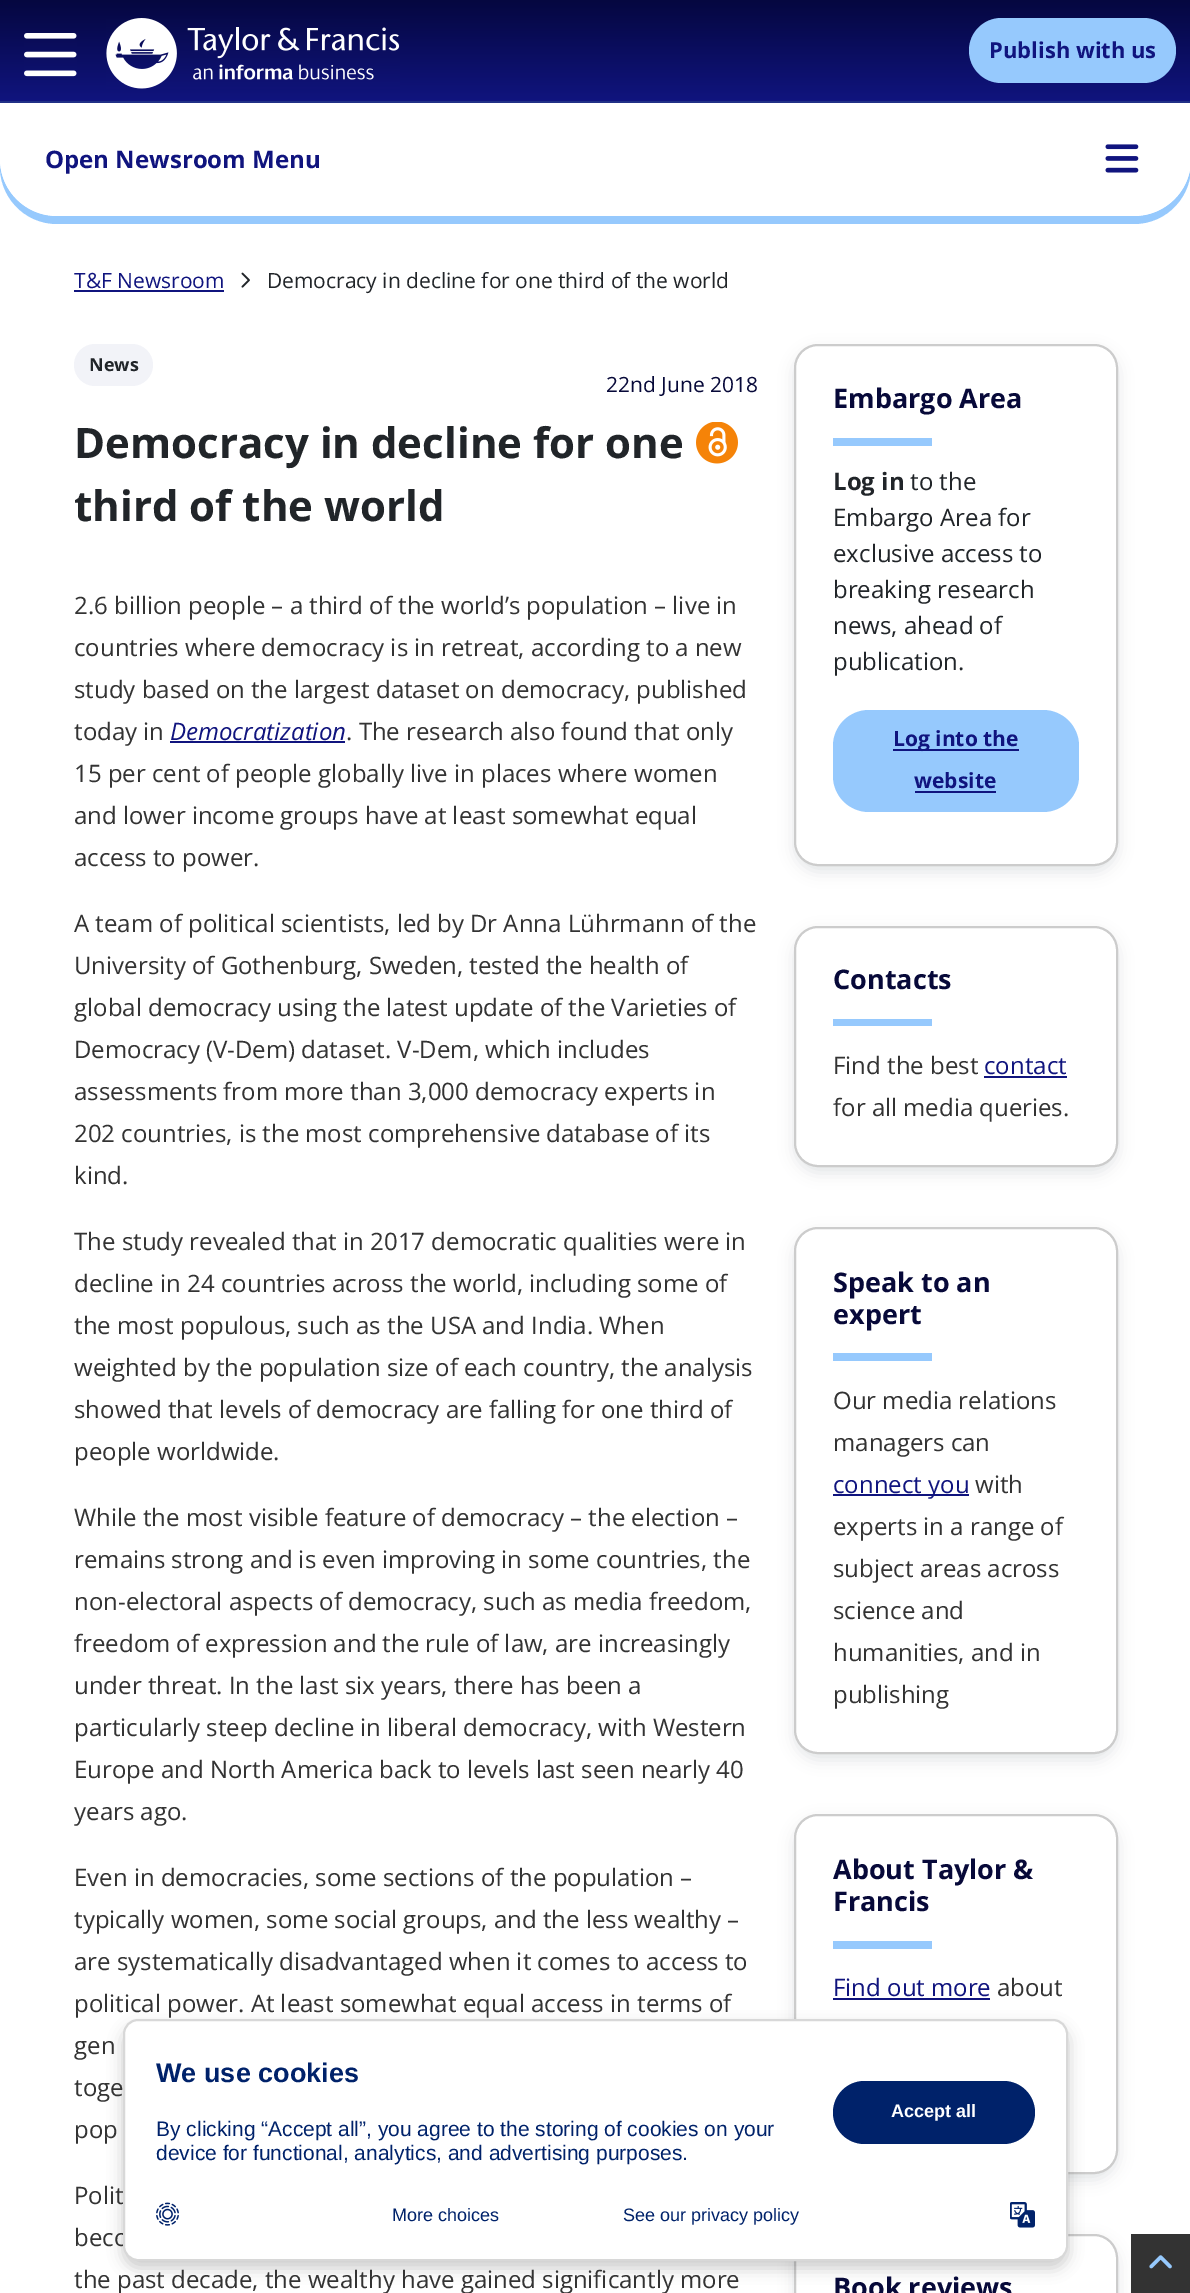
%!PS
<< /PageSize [1190 2293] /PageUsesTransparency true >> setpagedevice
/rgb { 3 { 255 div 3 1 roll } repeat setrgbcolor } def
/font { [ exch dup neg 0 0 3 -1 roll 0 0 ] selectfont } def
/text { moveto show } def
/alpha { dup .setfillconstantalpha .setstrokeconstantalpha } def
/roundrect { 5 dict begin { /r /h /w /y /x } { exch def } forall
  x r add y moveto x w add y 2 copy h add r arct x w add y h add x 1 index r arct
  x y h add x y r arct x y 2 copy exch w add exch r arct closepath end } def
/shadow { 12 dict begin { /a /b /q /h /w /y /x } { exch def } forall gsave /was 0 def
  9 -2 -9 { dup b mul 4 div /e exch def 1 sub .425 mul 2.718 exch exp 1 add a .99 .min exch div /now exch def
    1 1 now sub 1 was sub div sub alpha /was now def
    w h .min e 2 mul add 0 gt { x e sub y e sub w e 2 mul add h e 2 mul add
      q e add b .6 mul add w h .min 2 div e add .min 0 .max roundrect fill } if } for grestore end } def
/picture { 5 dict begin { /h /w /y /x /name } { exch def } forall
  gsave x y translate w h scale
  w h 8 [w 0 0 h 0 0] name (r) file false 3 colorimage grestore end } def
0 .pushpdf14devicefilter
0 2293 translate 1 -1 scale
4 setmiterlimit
255 255 255 rgb
0 0 1190 2293 rectfill
gsave 0 0 moveto 1190 0 rlineto 0 101 rlineto -1190 0 rlineto closepath clip newpath
<< /ShadingType 2 /ColorSpace /DeviceRGB /Coords [596 0 596 101] /Extend [true true] /Function << /FunctionType 2 /Domain [0 1] /C0 [0.02 0.027 0.251] /C1 [0.063 0.078 0.494] /N 1 >> >> shfill grestore
150 201 253 rgb
0 163 moveto -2 33 24 61 57 61 rcurveto 1077 0 rlineto 33 0 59 -28 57 -61 rcurveto -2 30 -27 53 -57 53 rcurveto -1077 0 rlineto -30 0 -55 -23 -57 -53 rcurveto closepath fill
255 255 255 rgb
0 102 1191 114 57 roundrect fill
33 48 134 rgb
0 101 1190 2 rectfill
(img_01.rgb) 24 33 53 44 picture
(img_02.rgb) 106 18 294 71 picture
150 201 253 rgb
969 18 207 65 32.5 roundrect fill
(img_03.rgb) 1105 144 34 29 picture
16 20 126 rgb
74 290 150 2 rectfill
(img_04.rgb) 241 272 9 16 picture
242 243 248 rgb
74 344 79 42 21 roundrect fill
(img_05.rgb) 696 422 42 42 picture
16 20 126 rgb
170 741 175 2 rectfill
gsave
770 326 moveto 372 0 rlineto 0 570 rlineto -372 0 rlineto closepath 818 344 moveto 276 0 rlineto 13.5 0 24 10.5 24 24 rcurveto 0 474 rlineto 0 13.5 -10.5 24 -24 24 rcurveto -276 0 rlineto -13.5 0 -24 -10.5 -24 -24 rcurveto 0 -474 rlineto 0 -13.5 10.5 -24 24 -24 rcurveto closepath eoclip newpath
226 228 231 rgb
794 350 324 522 24 7.5 1 shadow
grestore
204 204 204 rgb
2 setlinewidth
795 345 322 520 23 roundrect stroke
150 201 253 rgb
833 438 99 8 rectfill
833 710 246 102 36 roundrect fill
16 20 126 rgb
893 749 126 2 rectfill
915 791 81 2 rectfill
gsave
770 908 moveto 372 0 rlineto 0 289 rlineto -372 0 rlineto closepath 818 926 moveto 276 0 rlineto 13.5 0 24 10.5 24 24 rcurveto 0 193 rlineto 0 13.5 -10.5 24 -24 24 rcurveto -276 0 rlineto -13.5 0 -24 -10.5 -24 -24 rcurveto 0 -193 rlineto 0 -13.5 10.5 -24 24 -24 rcurveto closepath eoclip newpath
226 228 231 rgb
794 932 324 241 24 7.5 1 shadow
grestore
204 204 204 rgb
795 927 322 239 23 roundrect stroke
150 201 253 rgb
833 1019 99 7 rectfill
16 20 126 rgb
984 1076 83 2 rectfill
gsave
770 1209 moveto 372 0 rlineto 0 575 rlineto -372 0 rlineto closepath 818 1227 moveto 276 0 rlineto 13.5 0 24 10.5 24 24 rcurveto 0 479 rlineto 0 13.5 -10.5 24 -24 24 rcurveto -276 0 rlineto -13.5 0 -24 -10.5 -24 -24 rcurveto 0 -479 rlineto 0 -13.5 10.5 -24 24 -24 rcurveto closepath eoclip newpath
226 228 231 rgb
794 1233 324 527 24 7.5 1 shadow
grestore
204 204 204 rgb
795 1228 322 525 23 roundrect stroke
150 201 253 rgb
833 1353 99 8 rectfill
16 20 126 rgb
833 1494 136 2 rectfill
gsave
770 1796 moveto 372 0 rlineto 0 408 rlineto -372 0 rlineto closepath 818 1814 moveto 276 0 rlineto 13.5 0 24 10.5 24 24 rcurveto 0 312 rlineto 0 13.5 -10.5 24 -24 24 rcurveto -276 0 rlineto -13.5 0 -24 -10.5 -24 -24 rcurveto 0 -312 rlineto 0 -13.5 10.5 -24 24 -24 rcurveto closepath eoclip newpath
226 228 231 rgb
794 1820 324 360 24 7.5 1 shadow
grestore
204 204 204 rgb
795 1815 322 358 23 roundrect stroke
150 201 253 rgb
833 1941 99 8 rectfill
16 20 126 rgb
833 1998 157 2 rectfill
gsave
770 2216 moveto 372 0 rlineto 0 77 rlineto -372 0 rlineto closepath 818 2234 moveto 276 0 rlineto 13.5 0 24 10.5 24 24 rcurveto 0 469 rlineto 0 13.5 -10.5 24 -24 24 rcurveto -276 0 rlineto -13.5 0 -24 -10.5 -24 -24 rcurveto 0 -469 rlineto 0 -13.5 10.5 -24 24 -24 rcurveto closepath eoclip newpath
226 228 231 rgb
794 2240 324 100 24 7.5 1 shadow
grestore
204 204 204 rgb
795 2235 322 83 23 roundrect stroke
51 51 51 rgb
1131 2234 59 59 rectfill
(img_06.rgb) 1149 2255 23 14 picture
0 0 0 rgb
123 2027 945 241 15 7.5 0.2 shadow
/OpenSans-Bold 22 font
16 20 126 rgb
(Publish with us) 989 58 text
/OpenSans-Bold 24 font
(Open Newsroom Menu) 45 168 text
/OpenSans-Regular 21 font
(T&F Newsroom) 74 288 text
33 37 41 rgb
(Democracy in decline for one third of the world) 267 288 text
/OpenSans-Bold 18 font
(News) 89 371 text
/OpenSans-Regular 21 font
7 9 57 rgb
(22nd June 2018) 606 392 text
/OpenSans-Bold 42 font
33 37 41 rgb
(Democracy in decline for one) 74 458 text
(third of the world) 74 521 text
/OpenSans-Regular 24 font
51 51 51 rgb
(2.6 billion people – a third of the world’s population – live in) 74 614 text
(countries where democracy is in retreat, according to a new) 74 656 text
(study based on the largest dataset on democracy, published) 74 698 text
(today in) 74 740 text
/OpenSans-Italic 24 font
16 20 126 rgb
(Democratization) 170 740 text
/OpenSans-Regular 24 font
51 51 51 rgb
(. The research also found that only) 346 740 text
(15 per cent of people globally live in places where women) 74 782 text
(and lower income groups have at least somewhat equal) 74 824 text
(access to power.) 74 866 text
(A team of political scientists, led by Dr Anna Lührmann of the) 74 932 text
(University of Gothenburg, Sweden, tested the health of) 74 974 text
(global democracy using the latest update of the Varieties of) 74 1016 text
(Democracy \(V-Dem\) dataset. V-Dem, which includes) 74 1058 text
(assessments from more than 3,000 democracy experts in) 74 1100 text
(202 countries, is the most comprehensive database of its) 74 1142 text
(kind.) 74 1184 text
(The study revealed that in 2017 democratic qualities were in) 74 1250 text
(decline in 24 countries across the world, including some of) 74 1292 text
(the most populous, such as the USA and India. When) 74 1334 text
(weighted by the population size of each country, the analysis) 74 1376 text
(showed that levels of democracy are falling for one third of) 74 1418 text
(people worldwide.) 74 1460 text
(While the most visible feature of democracy – the election –) 74 1526 text
(remains strong and is even improving in some countries, the) 74 1568 text
(non-electoral aspects of democracy, such as media freedom,) 74 1610 text
(freedom of expression and the rule of law, are increasingly) 74 1652 text
(under threat. In the last six years, there has been a) 74 1694 text
(particularly steep decline in liberal democracy, with Western) 74 1736 text
(Europe and North America back to levels last seen nearly 40) 74 1778 text
(years ago.) 74 1820 text
(Even in democracies, some sections of the population –) 74 1886 text
(typically women, some social groups, and the less wealthy –) 74 1928 text
(are systematically disadvantaged when it comes to access to) 74 1970 text
(political power. At least somewhat equal access in terms of) 74 2012 text
(gen) 74 2054 text
(toge) 74 2096 text
(pop) 74 2138 text
(Polit) 74 2204 text
(beco) 74 2246 text
(the past decade, the wealthy have gained significantly more) 74 2288 text
/OpenSans-Bold 27 font
7 9 57 rgb
(Embargo Area) 833 408 text
/OpenSans-Bold 24 font
33 37 41 rgb
(Log in) 833 490 text
/OpenSans-Regular 24 font
(to the) 910 490 text
(Embargo Area for) 833 526 text
(exclusive access to) 833 562 text
(breaking research) 833 598 text
(news, ahead of) 833 634 text
(publication.) 833 670 text
/OpenSans-Bold 21 font
16 20 126 rgb
(Log into the) 893 746 text
(website) 914 788 text
/OpenSans-Bold 27 font
7 9 57 rgb
(Contacts) 833 989 text
/OpenSans-Regular 24 font
51 51 51 rgb
(Find the best) 833 1074 text
16 20 126 rgb
(contact) 984 1074 text
51 51 51 rgb
(for all media queries.) 833 1116 text
/OpenSans-Bold 27 font
7 9 57 rgb
(Speak to an) 833 1292 text
(expert) 833 1324 text
/OpenSans-Regular 24 font
51 51 51 rgb
(Our media relations) 833 1409 text
(managers can) 833 1451 text
16 20 126 rgb
(connect you) 833 1493 text
51 51 51 rgb
(with) 975 1493 text
(experts in a range of) 833 1535 text
(subject areas across) 833 1577 text
(science and) 833 1619 text
(humanities, and in) 833 1661 text
(publishing) 833 1703 text
/OpenSans-Bold 27 font
7 9 57 rgb
(About Taylor &) 833 1879 text
(Francis) 833 1911 text
/OpenSans-Regular 24 font
16 20 126 rgb
(Find out more) 833 1996 text
51 51 51 rgb
(about) 997 1996 text
/OpenSans-Bold 27 font
7 9 57 rgb
(Book reviews) 833 2297 text
255 255 255 rgb
124 2020 943 240 14 roundrect gsave fill grestore
216 216 216 rgb
stroke
/LiberationSans-Bold 27 font
0 34 106 rgb
(We use cookies) 156 2082 text
/LiberationSans-Regular 21 font
(By clicking “Accept all”, you agree to the storing of cookies on your) 156 2136 text
(device for functional, analytics, and advertising purposes.) 156 2160 text
833 2081 202 63 31.5 roundrect fill
/LiberationSans-Bold 18 font
255 255 255 rgb
(Accept all) 891 2117 text
(img_07.rgb) 156 2202 23 24 picture
/LiberationSans-Regular 18 font
0 34 106 rgb
(More choices) 392 2221 text
(See our privacy policy) 623 2221 text
(img_08.rgb) 1010 2202 25 26 picture
.poppdf14devicefilter showpage
